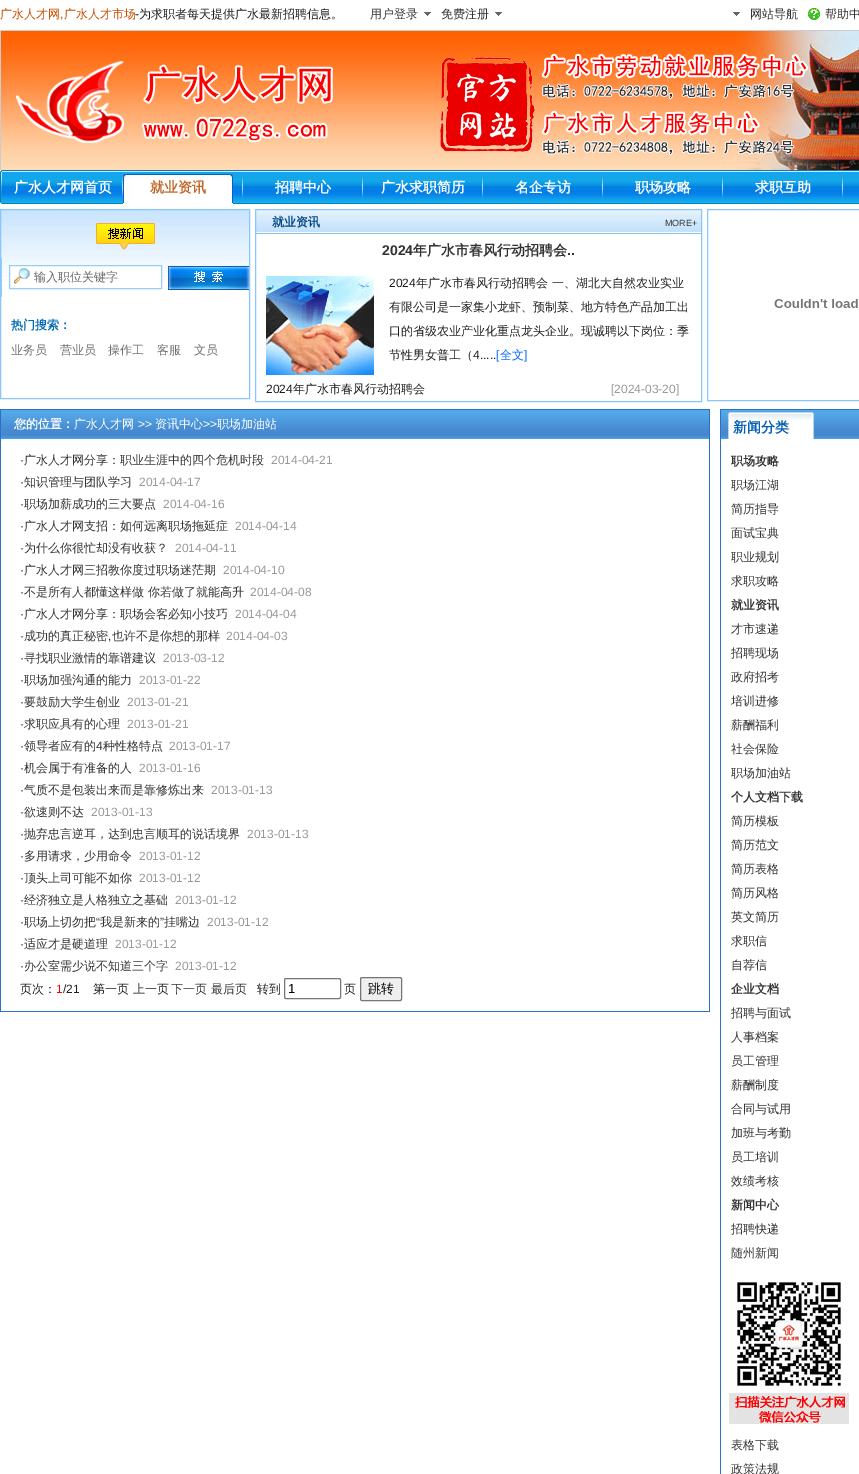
%!PS
<< /PageSize [859 1474] >> setpagedevice
/rgb { 3 { 255 div 3 1 roll } repeat setrgbcolor } def
/font { [ exch dup neg 0 0 3 -1 roll 0 0 ] selectfont } def
/text { moveto show } def
/roundrect { 5 dict begin { /r /h /w /y /x } { exch def } forall
  x r add y moveto x w add y 2 copy h add r arct x w add y h add x 1 index r arct
  x y h add x y r arct x y 2 copy exch w add exch r arct closepath end } def
/picture { 5 dict begin { /h /w /y /x /name } { exch def } forall
  gsave x y translate w h scale
  w h 8 [w 0 0 h 0 0] name (r) file false 3 colorimage grestore end } def
0 1474 translate 1 -1 scale
4 setmiterlimit
255 255 255 rgb
0 0 859 1474 rectfill
(img_01.rgb) 424 12 7 4 picture
(img_01.rgb) 495 12 7 4 picture
(img_01.rgb) 733 12 7 4 picture
(img_02.rgb) 808 8 12 12 picture
204 204 204 rgb
0.5 30.5 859 143 rectstroke
(img_03.rgb) 1 31 858 139 picture
(img_04.rgb) 2 170 857 34 picture
(img_05.rgb) 0 170 2 34 picture
(img_06.rgb) 122 172 1 28 picture
(img_06.rgb) 242 172 1 28 picture
(img_07.rgb) 123 170 110 34 picture
(img_06.rgb) 362 172 1 28 picture
(img_06.rgb) 482 172 1 28 picture
(img_06.rgb) 602 172 1 28 picture
(img_06.rgb) 722 172 1 28 picture
(img_06.rgb) 842 172 1 28 picture
(img_08.rgb) 1 210 248 71 picture
137 198 253 rgb
0.5 209.5 249 189 rectstroke
(img_09.rgb) 96 223 59 27 picture
151 205 248 rgb
1 258 1 39 rectfill
255 255 255 rgb
10 266 151 15 rectfill
(img_10.rgb) 14 268 16 16 picture
151 205 248 rgb
9.5 265.5 152 23 rectstroke
(img_11.rgb) 168 266 81 24 picture
(img_12.rgb) 256 210 445 24 picture
137 198 253 rgb
255.5 209.5 446 192 rectstroke
(img_13.rgb) 266 276 108 99 picture
707.5 209.5 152 191 rectstroke
(img_14.rgb) 774 299 84 9 picture
(img_15.rgb) 1 410 708 29 picture
44 113 197 rgb
0 409 710 1 rectfill
709 409 1 603 rectfill
0 409 1 30 rectfill
0 1011 710 1 rectfill
0 439 1 573 rectfill
118 118 118 rgb
284.5 978.5 56 20 1.5 roundrect stroke
239 239 239 rgb
360.5 977.5 41 23 1.5 roundrect gsave fill grestore
118 118 118 rgb
stroke
(img_16.rgb) 721 410 138 29 picture
44 113 197 rgb
720 409 139 1 rectfill
720 409 1 1065 rectfill
(img_17.rgb) 729 1274 120 150 picture
/WenQuanYiZenHei-Medium 12 font
199 78 0 rgb
(广水人才网 广水人才市场) 0 18 text
/LiberationSans-Regular 12 font
34 30 31 rgb
(-) 135 18 text
/WenQuanYiZenHei-Medium 12 font
(为求职者每天提供广水最新招聘信息。) 139 18 text
/LiberationSans-Regular 12 font
199 78 0 rgb
(,) 60 18 text
/WenQuanYiZenHei-Medium 12 font
51 51 51 rgb
(用户登录) 370 18 text
(免费注册) 441 18 text
(网站导航) 750 18 text
(帮助中) 825 18 text
/WenQuanYiZenHei-Bold 14 font
255 255 255 rgb
(广水人才网首页) 14 192 text
193 102 40 rgb
(就业资讯) 150 192 text
255 255 255 rgb
(招聘中心) 275 192 text
(广水求职简历) 381 192 text
(名企专访) 515 192 text
(职场攻略) 635 192 text
(求职互助) 755 192 text
/WenQuanYiZenHei-Medium 12 font
102 102 102 rgb
(输入职位关键字) 34 281 text
/WenQuanYiZenHei-Bold 12 font
0 104 183 rgb
(热门搜索：) 11 329 text
/WenQuanYiZenHei-Medium 12 font
109 110 113 rgb
(业务员) 11 354 text
(营业员) 60 354 text
(操作工) 108 354 text
(客服) 157 354 text
(文员) 194 354 text
/WenQuanYiZenHei-Bold 12 font
2 72 131 rgb
(就业资讯) 272 226 text
/LiberationSans-Regular 9 font
51 51 51 rgb
(MORE+) 665 226 text
/LiberationSans-Bold 14 font
(2024) 382 255 text
/WenQuanYiZenHei-Bold 14 font
(年广水市春风行动招聘会) 413 255 text
/LiberationSans-Bold 14 font
(..) 567 255 text
/LiberationSans-Regular 12 font
34 30 31 rgb
(2024) 389 287 text
/WenQuanYiZenHei-Medium 12 font
(年广水市春风行动招聘会 一、湖北大自然农业实业) 416 287 text
(有限公司是一家集小龙虾、预制菜、地方特色产品加工出) 389 311 text
(口的省级农业产业化重点龙头企业。现诚聘以下岗位：季) 389 335 text
(节性男女普工（) 389 359 text
/LiberationSans-Regular 12 font
(4.....) 473 359 text
0 102 255 rgb
([) 496 359 text
/WenQuanYiZenHei-Medium 12 font
(全文) 500 359 text
/LiberationSans-Regular 12 font
(]) 524 359 text
34 30 31 rgb
(2024) 266 393 text
/WenQuanYiZenHei-Medium 12 font
(年广水市春风行动招聘会) 293 393 text
/LiberationSans-Regular 12 font
153 153 153 rgb
([2024-03-20]) 611 393 text
/WenQuanYiZenHei-Bold 12 font
255 255 255 rgb
(您的位置：) 14 428 text
/WenQuanYiZenHei-Medium 12 font
(广水人才网) 74 428 text
/LiberationSans-Regular 12 font
(>>) 138 428 text
/WenQuanYiZenHei-Medium 12 font
(资讯中心) 155 428 text
/LiberationSans-Regular 12 font
(>>) 203 428 text
/WenQuanYiZenHei-Medium 12 font
(职场加油站) 217 428 text
/LiberationSans-Regular 12 font
34 30 31 rgb
(·) 20 464 text
/WenQuanYiZenHei-Medium 12 font
51 51 51 rgb
(广水人才网分享：职业生涯中的四个危机时段) 24 464 text
/LiberationSans-Regular 12 font
153 153 153 rgb
(2014-04-21) 271 464 text
34 30 31 rgb
(·) 20 486 text
/WenQuanYiZenHei-Medium 12 font
51 51 51 rgb
(知识管理与团队学习) 24 486 text
/LiberationSans-Regular 12 font
153 153 153 rgb
(2014-04-17) 139 486 text
34 30 31 rgb
(·) 20 508 text
/WenQuanYiZenHei-Medium 12 font
51 51 51 rgb
(职场加薪成功的三大要点) 24 508 text
/LiberationSans-Regular 12 font
153 153 153 rgb
(2014-04-16) 163 508 text
34 30 31 rgb
(·) 20 530 text
/WenQuanYiZenHei-Medium 12 font
51 51 51 rgb
(广水人才网支招：如何远离职场拖延症) 24 530 text
/LiberationSans-Regular 12 font
153 153 153 rgb
(2014-04-14) 235 530 text
34 30 31 rgb
(·) 20 552 text
/WenQuanYiZenHei-Medium 12 font
51 51 51 rgb
(为什么你很忙却没有收获？) 24 552 text
/LiberationSans-Regular 12 font
153 153 153 rgb
(2014-04-11) 175 552 text
34 30 31 rgb
(·) 20 574 text
/WenQuanYiZenHei-Medium 12 font
51 51 51 rgb
(广水人才网三招教你度过职场迷茫期) 24 574 text
/LiberationSans-Regular 12 font
153 153 153 rgb
(2014-04-10) 223 574 text
34 30 31 rgb
(·) 20 596 text
/WenQuanYiZenHei-Medium 12 font
51 51 51 rgb
(不是所有人都懂这样做 你若做了就能高升) 24 596 text
/LiberationSans-Regular 12 font
153 153 153 rgb
(2014-04-08) 250 596 text
34 30 31 rgb
(·) 20 618 text
/WenQuanYiZenHei-Medium 12 font
51 51 51 rgb
(广水人才网分享：职场会客必知小技巧) 24 618 text
/LiberationSans-Regular 12 font
153 153 153 rgb
(2014-04-04) 235 618 text
34 30 31 rgb
(·) 20 640 text
/WenQuanYiZenHei-Medium 12 font
51 51 51 rgb
(成功的真正秘密 也许不是你想的那样) 24 640 text
/LiberationSans-Regular 12 font
153 153 153 rgb
(2014-04-03) 226 640 text
51 51 51 rgb
(,) 108 640 text
34 30 31 rgb
(·) 20 662 text
/WenQuanYiZenHei-Medium 12 font
51 51 51 rgb
(寻找职业激情的靠谱建议) 24 662 text
/LiberationSans-Regular 12 font
153 153 153 rgb
(2013-03-12) 163 662 text
34 30 31 rgb
(·) 20 684 text
/WenQuanYiZenHei-Medium 12 font
51 51 51 rgb
(职场加强沟通的能力) 24 684 text
/LiberationSans-Regular 12 font
153 153 153 rgb
(2013-01-22) 139 684 text
34 30 31 rgb
(·) 20 706 text
/WenQuanYiZenHei-Medium 12 font
51 51 51 rgb
(要鼓励大学生创业) 24 706 text
/LiberationSans-Regular 12 font
153 153 153 rgb
(2013-01-21) 127 706 text
34 30 31 rgb
(·) 20 728 text
/WenQuanYiZenHei-Medium 12 font
51 51 51 rgb
(求职应具有的心理) 24 728 text
/LiberationSans-Regular 12 font
153 153 153 rgb
(2013-01-21) 127 728 text
34 30 31 rgb
(·) 20 750 text
/WenQuanYiZenHei-Medium 12 font
51 51 51 rgb
(领导者应有的) 24 750 text
/LiberationSans-Regular 12 font
(4) 96 750 text
/WenQuanYiZenHei-Medium 12 font
(种性格特点) 103 750 text
/LiberationSans-Regular 12 font
153 153 153 rgb
(2013-01-17) 169 750 text
34 30 31 rgb
(·) 20 772 text
/WenQuanYiZenHei-Medium 12 font
51 51 51 rgb
(机会属于有准备的人) 24 772 text
/LiberationSans-Regular 12 font
153 153 153 rgb
(2013-01-16) 139 772 text
34 30 31 rgb
(·) 20 794 text
/WenQuanYiZenHei-Medium 12 font
51 51 51 rgb
(气质不是包装出来而是靠修炼出来) 24 794 text
/LiberationSans-Regular 12 font
153 153 153 rgb
(2013-01-13) 211 794 text
34 30 31 rgb
(·) 20 816 text
/WenQuanYiZenHei-Medium 12 font
51 51 51 rgb
(欲速则不达) 24 816 text
/LiberationSans-Regular 12 font
153 153 153 rgb
(2013-01-13) 91 816 text
34 30 31 rgb
(·) 20 838 text
/WenQuanYiZenHei-Medium 12 font
51 51 51 rgb
(抛弃忠言逆耳，达到忠言顺耳的说话境界) 24 838 text
/LiberationSans-Regular 12 font
153 153 153 rgb
(2013-01-13) 247 838 text
34 30 31 rgb
(·) 20 860 text
/WenQuanYiZenHei-Medium 12 font
51 51 51 rgb
(多用请求，少用命令) 24 860 text
/LiberationSans-Regular 12 font
153 153 153 rgb
(2013-01-12) 139 860 text
34 30 31 rgb
(·) 20 882 text
/WenQuanYiZenHei-Medium 12 font
51 51 51 rgb
(顶头上司可能不如你) 24 882 text
/LiberationSans-Regular 12 font
153 153 153 rgb
(2013-01-12) 139 882 text
34 30 31 rgb
(·) 20 904 text
/WenQuanYiZenHei-Medium 12 font
51 51 51 rgb
(经济独立是人格独立之基础) 24 904 text
/LiberationSans-Regular 12 font
153 153 153 rgb
(2013-01-12) 175 904 text
34 30 31 rgb
(·) 20 926 text
/WenQuanYiZenHei-Medium 12 font
51 51 51 rgb
(职场上切勿把) 24 926 text
/LiberationSans-Regular 12 font
(“) 96 926 text
/WenQuanYiZenHei-Medium 12 font
(我是新来的) 100 926 text
/LiberationSans-Regular 12 font
(”) 160 926 text
/WenQuanYiZenHei-Medium 12 font
(挂嘴边) 164 926 text
/LiberationSans-Regular 12 font
153 153 153 rgb
(2013-01-12) 207 926 text
34 30 31 rgb
(·) 20 948 text
/WenQuanYiZenHei-Medium 12 font
51 51 51 rgb
(适应才是硬道理) 24 948 text
/LiberationSans-Regular 12 font
153 153 153 rgb
(2013-01-12) 115 948 text
34 30 31 rgb
(·) 20 970 text
/WenQuanYiZenHei-Medium 12 font
51 51 51 rgb
(办公室需少说不知道三个字) 24 970 text
/LiberationSans-Regular 12 font
153 153 153 rgb
(2013-01-12) 175 970 text
/WenQuanYiZenHei-Medium 12 font
34 30 31 rgb
(页次：) 20 993 text
/LiberationSans-Regular 12 font
255 0 0 rgb
(1) 56 993 text
34 30 31 rgb
(/21) 63 993 text
/WenQuanYiZenHei-Medium 12 font
(第一页 上一页) 93 993 text
51 51 51 rgb
(下一页 最后页) 171 993 text
34 30 31 rgb
(转到) 257 993 text
/LiberationSans-Regular 13 font
0 0 0 rgb
(1) 288 993 text
/WenQuanYiZenHei-Medium 12 font
34 30 31 rgb
(页) 344 993 text
/WenQuanYiZenHei-Medium 13 font
0 0 0 rgb
(跳转) 368 993 text
/WenQuanYiZenHei-Bold 14 font
6 95 185 rgb
(新闻分类) 733 432 text
/WenQuanYiZenHei-Bold 12 font
51 51 51 rgb
(职场攻略) 731 465 text
/WenQuanYiZenHei-Medium 12 font
(职场江湖) 731 489 text
(简历指导) 731 513 text
(面试宝典) 731 537 text
(职业规划) 731 561 text
(求职攻略) 731 585 text
/WenQuanYiZenHei-Bold 12 font
(就业资讯) 731 609 text
/WenQuanYiZenHei-Medium 12 font
(才市速递) 731 633 text
(招聘现场) 731 657 text
(政府招考) 731 681 text
(培训进修) 731 705 text
(薪酬福利) 731 729 text
(社会保险) 731 753 text
(职场加油站) 731 777 text
/WenQuanYiZenHei-Bold 12 font
(个人文档下载) 731 801 text
/WenQuanYiZenHei-Medium 12 font
(简历模板) 731 825 text
(简历范文) 731 849 text
(简历表格) 731 873 text
(简历风格) 731 897 text
(英文简历) 731 921 text
(求职信) 731 945 text
(自荐信) 731 969 text
/WenQuanYiZenHei-Bold 12 font
(企业文档) 731 993 text
/WenQuanYiZenHei-Medium 12 font
(招聘与面试) 731 1017 text
(人事档案) 731 1041 text
(员工管理) 731 1065 text
(薪酬制度) 731 1089 text
(合同与试用) 731 1113 text
(加班与考勤) 731 1137 text
(员工培训) 731 1161 text
(效绩考核) 731 1185 text
/WenQuanYiZenHei-Bold 12 font
(新闻中心) 731 1209 text
/WenQuanYiZenHei-Medium 12 font
(招聘快递) 731 1233 text
(随州新闻) 731 1257 text
(表格下载) 731 1449 text
(政策法规) 731 1473 text
showpage
